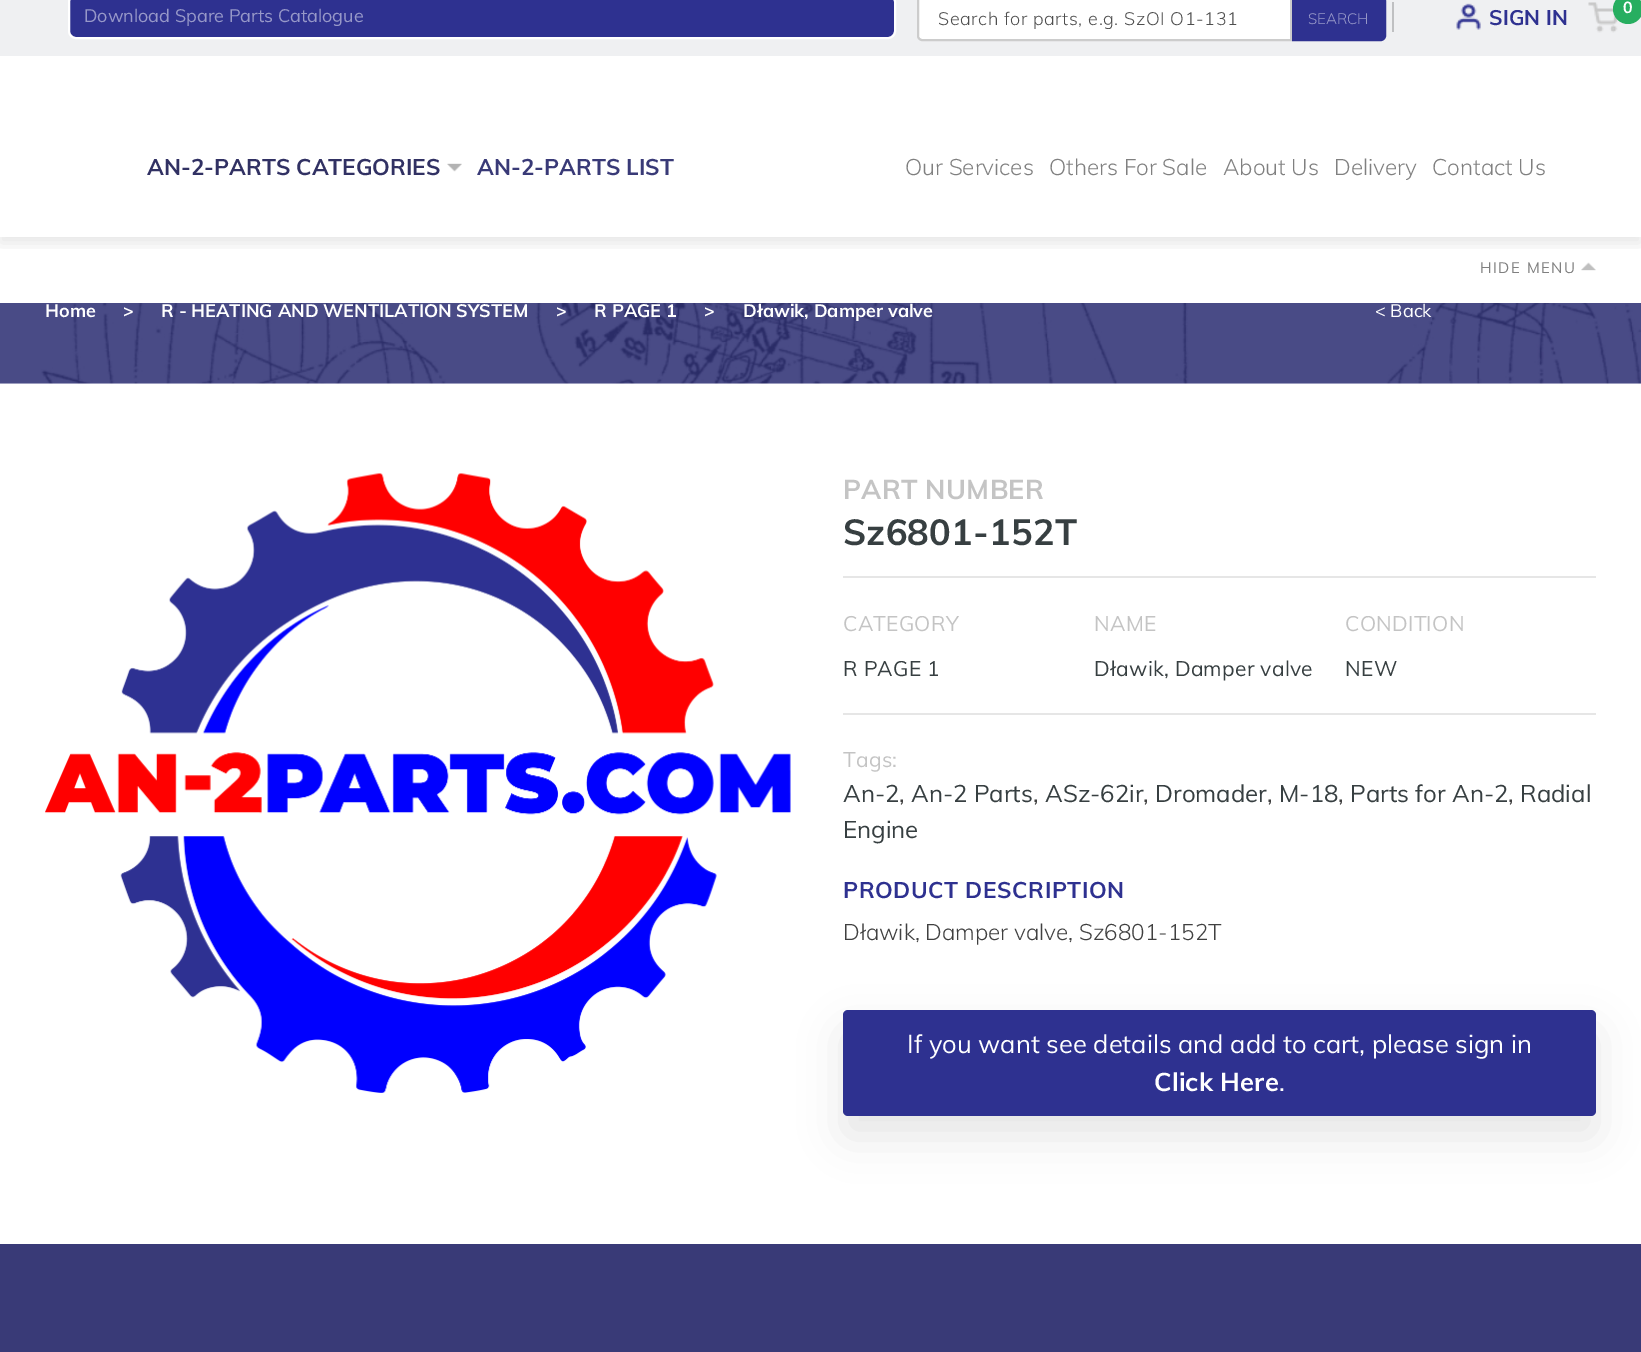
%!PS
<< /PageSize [1641 1352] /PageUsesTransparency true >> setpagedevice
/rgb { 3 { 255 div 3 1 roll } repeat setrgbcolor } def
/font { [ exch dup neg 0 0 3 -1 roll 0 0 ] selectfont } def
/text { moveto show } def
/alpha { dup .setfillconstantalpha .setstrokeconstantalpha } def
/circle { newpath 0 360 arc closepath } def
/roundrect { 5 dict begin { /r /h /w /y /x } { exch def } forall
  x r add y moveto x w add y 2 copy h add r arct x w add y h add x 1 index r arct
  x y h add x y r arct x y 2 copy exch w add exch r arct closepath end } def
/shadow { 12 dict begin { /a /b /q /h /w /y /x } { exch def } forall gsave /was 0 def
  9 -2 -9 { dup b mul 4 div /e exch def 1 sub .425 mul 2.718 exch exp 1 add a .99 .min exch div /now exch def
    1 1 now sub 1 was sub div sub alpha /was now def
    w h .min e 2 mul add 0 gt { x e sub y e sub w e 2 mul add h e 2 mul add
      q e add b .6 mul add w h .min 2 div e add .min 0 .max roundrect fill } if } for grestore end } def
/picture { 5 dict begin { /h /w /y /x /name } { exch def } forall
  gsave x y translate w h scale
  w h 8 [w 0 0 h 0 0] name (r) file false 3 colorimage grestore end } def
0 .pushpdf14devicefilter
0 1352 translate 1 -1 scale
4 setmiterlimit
255 255 255 rgb
0 0 1641 1352 rectfill
239 240 242 rgb
0 0 1641 56 rectfill
191 192 194 rgb
1392 2 2 30 rectfill
(img_04.rgb) 1581 262 15 9 picture
gsave
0 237 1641 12 rectclip
0 0 0 rgb
0 62 1641 181 0 7.5 0.1 shadow
grestore
46 49 144 rgb
69 -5 826 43 7 roundrect gsave fill grestore
255 255 255 rgb
2 setlinewidth
stroke
922 -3 moveto 369 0 rlineto 0 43 rlineto -369 0 rlineto -2 0 -4 -2 -4 -4 rcurveto 0 -35 rlineto 0 -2 2 -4 4 -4 rcurveto closepath gsave fill grestore
204 204 204 rgb
stroke
46 49 144 rgb
1293 -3 moveto 88 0 rlineto 2 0 4 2 4 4 rcurveto 0 35 rlineto 0 2 -2 4 -4 4 rcurveto -88 0 rlineto closepath gsave fill grestore
stroke
(img_01.rgb) 1456 3 25 27 picture
(img_02.rgb) 1588 2 30 31 picture
39 174 96 rgb
1628 9 15 circle fill
(img_03.rgb) 447 163 15 9 picture
241 241 247 rgb
0 383 1641 1 rectfill
(img_05.rgb) 0 303 1641 81 picture
(img_06.rgb) 45 473 746 620 picture
230 230 230 rgb
843 576 753 2 rectfill
843 713 753 2 rectfill
0 0 0 rgb
843 1031 753 106 5 21 0.1 shadow
46 49 144 rgb
843 1010 753 106 5 roundrect fill
57 58 119 rgb
0 1244 1641 108 rectfill
/Muli-Regular 18 font
151 152 200 rgb
(Download Spare Parts Catalogue) 84 22 text
/Muli-Light 18 font
78 78 78 rgb
938 25 moveto 0.6 0 (Search for parts, e.g. SzOI O1-131) ashow
/Muli-Light 15 font
151 152 200 rgb
(SEARCH) 1308 24 text
/Muli-Bold 21 font
46 49 144 rgb
(SIGN IN) 1489 25 text
/Muli-Bold 16 font
255 255 255 rgb
(0) 1623 13 text
/Muli-Bold 22.5 font
49 49 99 rgb
(AN-2-PARTS CATEGORIES) 147 175 text
57 58 119 rgb
(AN-2-PARTS LIST) 477 175 text
/Muli-Light 22.5 font
128 128 128 rgb
(Our Services) 905 175 text
(Others For Sale) 1049 175 text
(About Us) 1223 175 text
(Delivery) 1334 175 text
(Contact Us) 1432 175 text
/Muli-Regular 15 font
1480 273 moveto 1.5 0 (HIDE MENU) ashow
/Muli-Bold 18 font
255 255 255 rgb
(Home) 45 317 text
(>) 123 317 text
(R - HEATING AND WENTILATION SYSTEM) 161 317 text
(>) 556 317 text
(R PAGE 1) 594 317 text
(>) 704 317 text
(Dławik, Damper valve) 743 317 text
/Muli-Regular 18 font
(< Back) 1375 317 text
/Muli-Bold 27 font
196 196 196 rgb
843 499 moveto 0.25 0 (PART NUMBER) ashow
/Muli-Bold 36 font
55 63 65 rgb
843 545 moveto 0.25 0 (Sz6801-152T) ashow
/Muli-Regular 21 font
196 196 196 rgb
843 631 moveto 0.25 0 (CATEGORY) ashow
55 63 65 rgb
843 676 moveto 0.25 0 (R PAGE 1) ashow
196 196 196 rgb
1094 631 moveto 0.25 0 (NAME) ashow
55 63 65 rgb
1094 676 moveto 0.25 0 (Dławik, Damper valve) ashow
196 196 196 rgb
1345 631 moveto 0.25 0 (CONDITION) ashow
55 63 65 rgb
1345 676 moveto 0.25 0 (NEW) ashow
196 196 196 rgb
843 767 moveto 0.25 0 (Tags:) ashow
/Muli-Regular 24 font
55 63 65 rgb
(An-2) 843 802 text
64 64 64 rgb
(,) 899 802 text
55 63 65 rgb
(An-2 Parts) 911 802 text
64 64 64 rgb
(,) 1033 802 text
55 63 65 rgb
(ASz-62ir) 1045 802 text
64 64 64 rgb
(,) 1143 802 text
55 63 65 rgb
(Dromader) 1155 802 text
64 64 64 rgb
(,) 1267 802 text
55 63 65 rgb
(M-18) 1279 802 text
64 64 64 rgb
(,) 1338 802 text
55 63 65 rgb
(Parts for An-2) 1350 802 text
64 64 64 rgb
(,) 1508 802 text
55 63 65 rgb
(Radial) 1520 802 text
(Engine) 843 838 text
/Muli-Bold 22.5 font
46 49 144 rgb
843 898 moveto 0.6 0 (PRODUCT DESCRIPTION) ashow
/Muli-Light 22.5 font
64 64 64 rgb
(Dławik, Damper valve, Sz6801-152T) 843 940 text
/Muli-Regular 25.5 font
255 255 255 rgb
(If you want see details and add to cart, please sign in) 907 1053 text
/Muli-Bold 25.5 font
1154 1091 moveto 0.25 0 (Click Here) ashow
/Muli-Regular 25.5 font
(.) 1279 1091 text
.poppdf14devicefilter showpage
